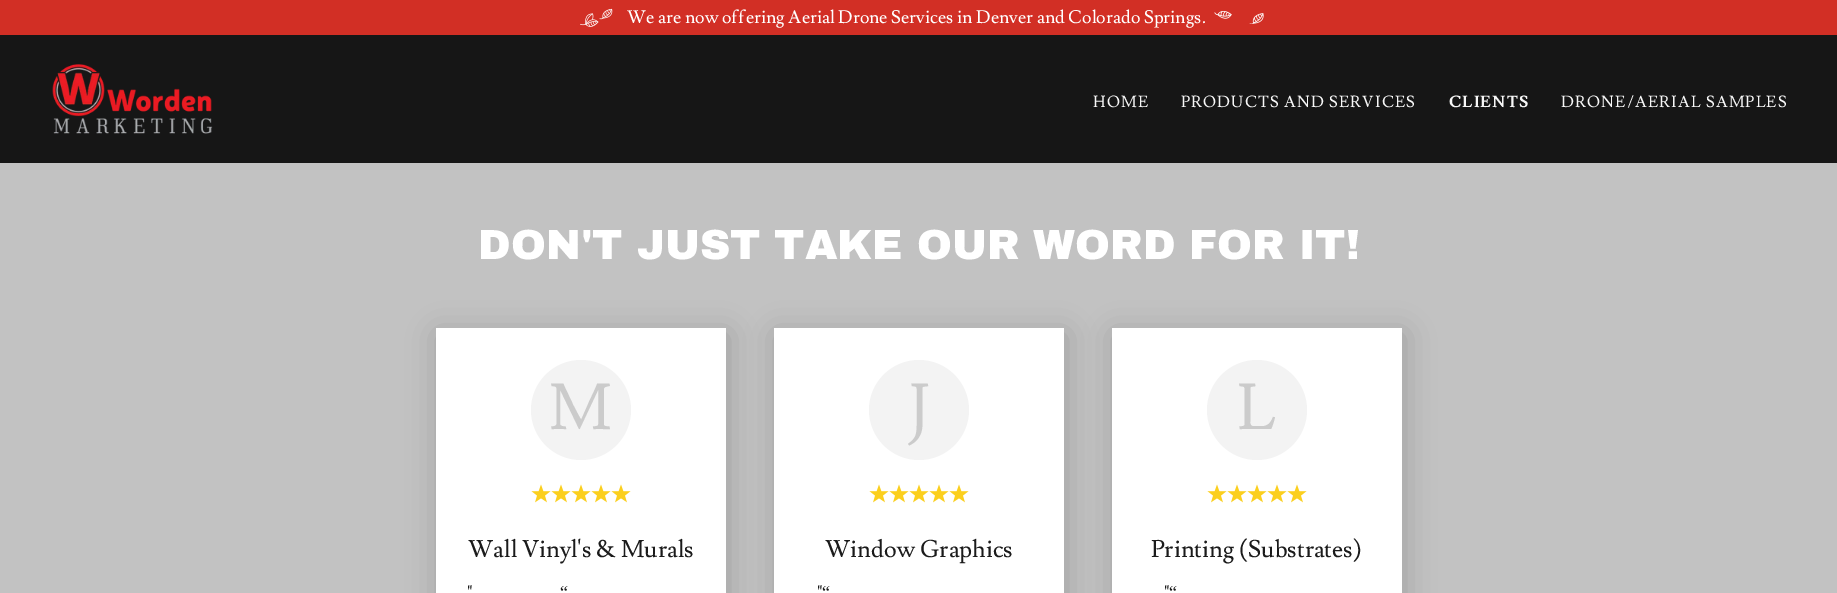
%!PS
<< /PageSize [1837 593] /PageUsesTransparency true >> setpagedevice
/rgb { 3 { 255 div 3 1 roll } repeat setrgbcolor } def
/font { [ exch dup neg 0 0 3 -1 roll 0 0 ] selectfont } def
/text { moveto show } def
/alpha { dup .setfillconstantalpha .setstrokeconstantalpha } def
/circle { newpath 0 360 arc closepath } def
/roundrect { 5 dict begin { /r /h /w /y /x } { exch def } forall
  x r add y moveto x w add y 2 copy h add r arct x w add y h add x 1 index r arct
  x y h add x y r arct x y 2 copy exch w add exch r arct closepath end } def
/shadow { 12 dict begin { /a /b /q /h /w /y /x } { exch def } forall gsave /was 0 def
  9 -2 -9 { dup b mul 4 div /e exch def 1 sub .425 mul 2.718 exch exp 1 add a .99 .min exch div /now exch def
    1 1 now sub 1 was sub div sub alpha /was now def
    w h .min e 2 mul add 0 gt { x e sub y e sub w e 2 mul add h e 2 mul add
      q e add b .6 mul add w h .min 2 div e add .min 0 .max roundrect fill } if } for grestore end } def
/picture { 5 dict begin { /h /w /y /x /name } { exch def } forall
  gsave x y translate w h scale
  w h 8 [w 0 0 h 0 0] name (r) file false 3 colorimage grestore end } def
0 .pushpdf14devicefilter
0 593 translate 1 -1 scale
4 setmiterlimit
22 22 22 rgb
0 0 1837 593 rectfill
210 47 37 rgb
0 0 1837 35 rectfill
(img_01.rgb) 580 8 33 19 picture
(img_02.rgb) 1214 11 50 13 picture
(img_03.rgb) 52 64 161 70 picture
194 194 194 rgb
0 163 1837 430 rectfill
0 0 0 rgb
438 334 290 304 0 15 0.18 shadow
255 255 255 rgb
436 328 290 265 rectfill
243 243 243 rgb
581 410 50 circle fill
(img_04.rgb) 531 484 20 19 picture
(img_04.rgb) 551 484 20 19 picture
(img_04.rgb) 571 484 20 19 picture
(img_04.rgb) 591 484 20 19 picture
(img_04.rgb) 611 484 20 19 picture
0 0 0 rgb
776 334 290 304 0 15 0.18 shadow
255 255 255 rgb
774 328 290 265 rectfill
243 243 243 rgb
919 410 50 circle fill
(img_04.rgb) 869 484 20 19 picture
(img_04.rgb) 889 484 20 19 picture
(img_04.rgb) 909 484 20 19 picture
(img_04.rgb) 929 484 20 19 picture
(img_04.rgb) 949 484 20 19 picture
0 0 0 rgb
1114 334 290 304 0 15 0.18 shadow
255 255 255 rgb
1112 328 290 265 rectfill
243 243 243 rgb
1257 410 50 circle fill
(img_04.rgb) 1207 484 20 19 picture
(img_04.rgb) 1227 484 20 19 picture
(img_04.rgb) 1247 484 20 19 picture
(img_04.rgb) 1267 484 20 19 picture
(img_04.rgb) 1287 484 20 19 picture
/Lusitana-Regular 18 font
255 255 255 rgb
(We are now offering Aerial Drone Services in Denver and Colorado Springs.) 627 23 text
/Lusitana-Regular 16 font
247 247 247 rgb
1093 107 moveto 1.1 0 (HOME) ashow
1181 107 moveto 1.1 0 (PRODUCTS AND SERVICES) ashow
/Lusitana-Bold 16 font
1449 107 moveto 1.1 0 (CLIENTS) ashow
/Lusitana-Regular 16 font
1561 107 moveto 1.1 0 (DRONE/AERIAL SAMPLES) ashow
/ArchivoBlack-Black 42 font
255 255 255 rgb
(DON'T JUST TAKE OUR WORD FOR IT!) 478 259 text
/Lusitana-Regular 64 font
203 203 203 rgb
(M) 549 429 text
/Lusitana-Regular 24 font
27 27 27 rgb
(Wall Vinyl's & Murals) 468 557 text
/Lusitana-Regular 18 font
(") 467 598 text
/LiberationSerif-Regular 18 font
(“) 560 598 text
/Lusitana-Regular 64 font
203 203 203 rgb
(J) 908 429 text
/Lusitana-Regular 24 font
27 27 27 rgb
(Window Graphics) 825 557 text
/Lusitana-Regular 18 font
(") 817 598 text
/LiberationSerif-Regular 18 font
(“) 822 598 text
/Lusitana-Regular 64 font
203 203 203 rgb
(L) 1237 429 text
/Lusitana-Regular 24 font
27 27 27 rgb
(Printing \(Substrates\)) 1151 557 text
/Lusitana-Regular 18 font
(") 1164 598 text
/LiberationSerif-Regular 18 font
(“) 1169 598 text
.poppdf14devicefilter showpage
